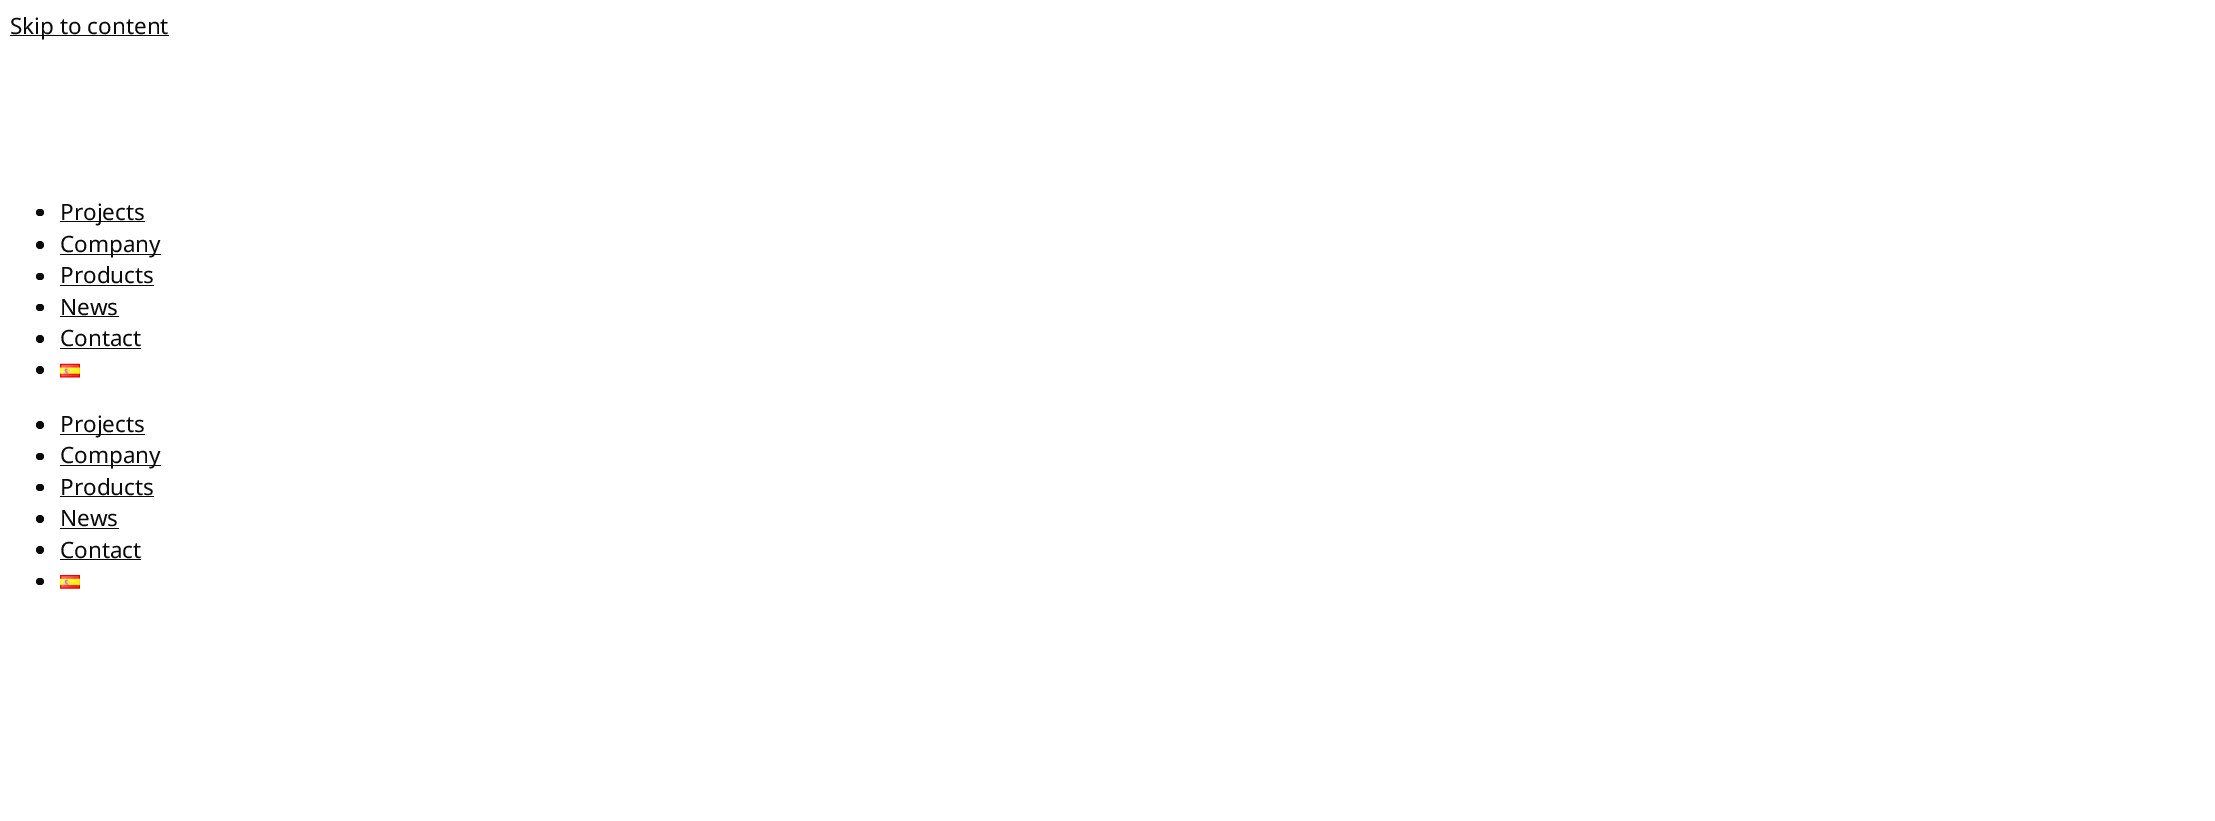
%!PS
<< /PageSize [2215 821] >> setpagedevice
/rgb { 3 { 255 div 3 1 roll } repeat setrgbcolor } def
/font { [ exch dup neg 0 0 3 -1 roll 0 0 ] selectfont } def
/text { moveto show } def
/circle { newpath 0 360 arc closepath } def
/roundrect { 5 dict begin { /r /h /w /y /x } { exch def } forall
  x r add y moveto x w add y 2 copy h add r arct x w add y h add x 1 index r arct
  x y h add x y r arct x y 2 copy exch w add exch r arct closepath end } def
/picture { 5 dict begin { /h /w /y /x /name } { exch def } forall
  gsave x y translate w h scale
  w h 8 [w 0 0 h 0 0] name (r) file false 3 colorimage grestore end } def
0 821 translate 1 -1 scale
4 setmiterlimit
255 255 255 rgb
0 0 2215 821 rectfill
10 10 10 rgb
10 35 159 1 rectfill
36 209 8 7 3.5 roundrect fill
60 221 85 1 rectfill
40 245 4 circle fill
60 254 101 1 rectfill
36 273 8 7 3.5 roundrect fill
60 285 94 1 rectfill
36 304 8 7 3.5 roundrect fill
60 316 59 1 rectfill
40 339 4 circle fill
60 348 81 1 rectfill
40 370 4 circle fill
(img_01.rgb) 60 363 20 15 picture
40 425 4 circle fill
60 434 85 1 rectfill
36 453 8 7 3.5 roundrect fill
60 465 101 1 rectfill
36 484 8 7 3.5 roundrect fill
60 496 94 1 rectfill
40 519 4 circle fill
60 528 59 1 rectfill
40 550 4 circle fill
60 559 81 1 rectfill
36 578 8 7 3.5 roundrect fill
(img_02.rgb) 60 575 20 14 picture
/NotoSans-Regular 22.5 font
(Skip to content) 10 34 text
(Projects) 60 220 text
(Company) 60 252 text
(Products) 60 283 text
(News) 60 315 text
(Contact) 60 346 text
(Projects) 60 432 text
(Company) 60 463 text
(Products) 60 495 text
(News) 60 526 text
(Contact) 60 558 text
showpage
